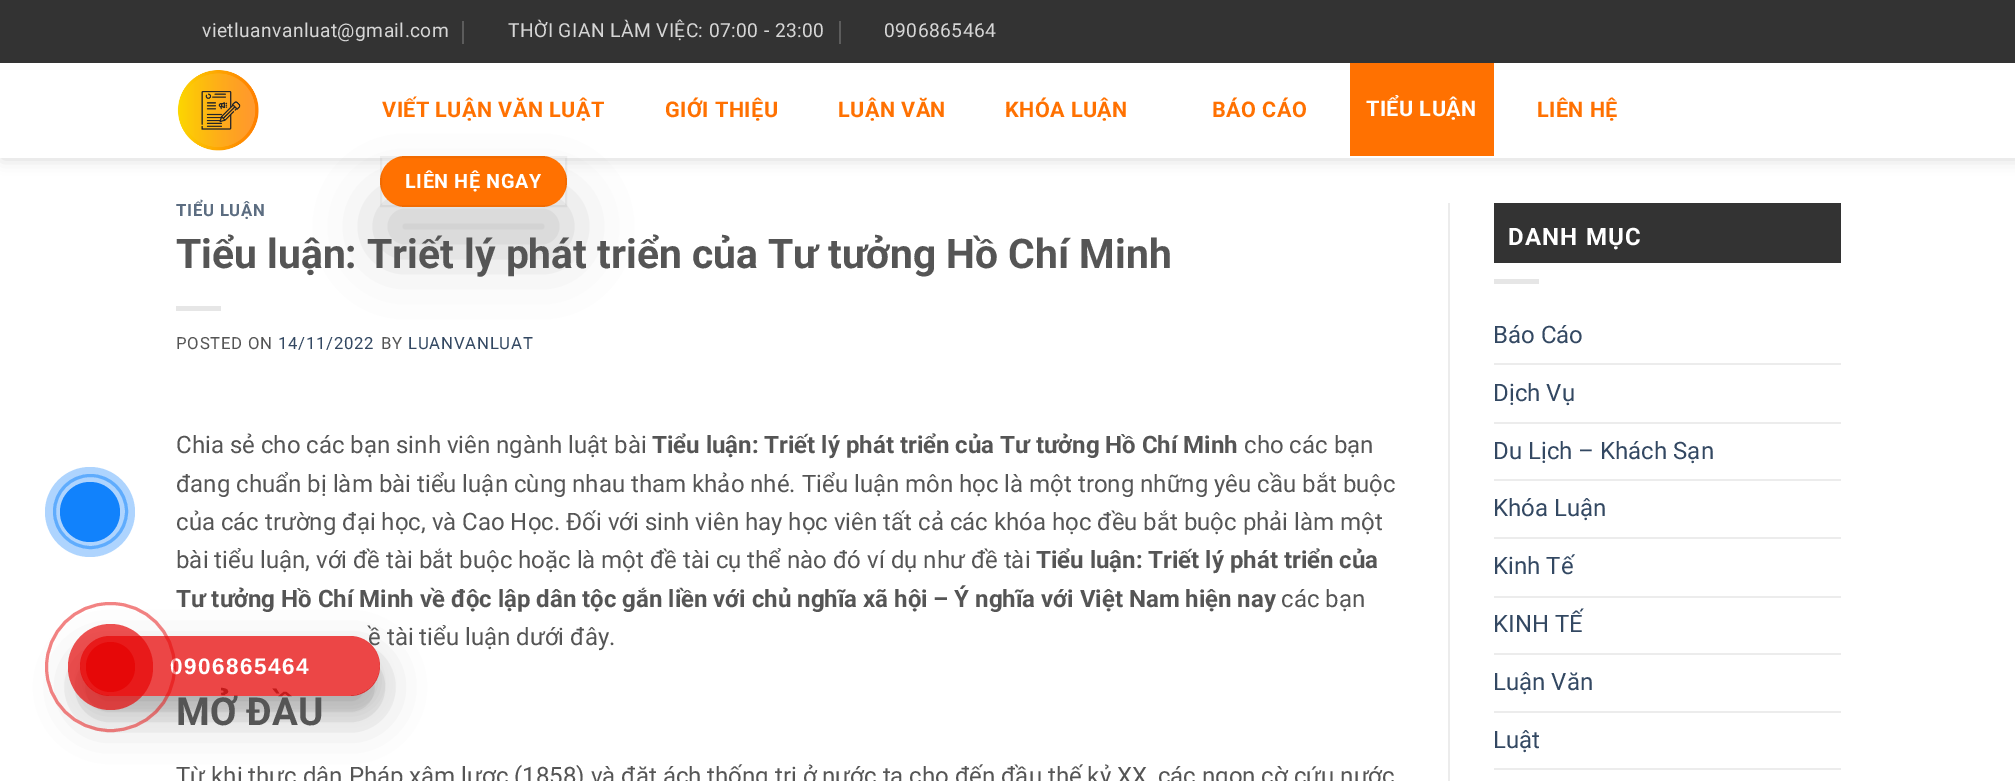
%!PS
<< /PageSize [2015 781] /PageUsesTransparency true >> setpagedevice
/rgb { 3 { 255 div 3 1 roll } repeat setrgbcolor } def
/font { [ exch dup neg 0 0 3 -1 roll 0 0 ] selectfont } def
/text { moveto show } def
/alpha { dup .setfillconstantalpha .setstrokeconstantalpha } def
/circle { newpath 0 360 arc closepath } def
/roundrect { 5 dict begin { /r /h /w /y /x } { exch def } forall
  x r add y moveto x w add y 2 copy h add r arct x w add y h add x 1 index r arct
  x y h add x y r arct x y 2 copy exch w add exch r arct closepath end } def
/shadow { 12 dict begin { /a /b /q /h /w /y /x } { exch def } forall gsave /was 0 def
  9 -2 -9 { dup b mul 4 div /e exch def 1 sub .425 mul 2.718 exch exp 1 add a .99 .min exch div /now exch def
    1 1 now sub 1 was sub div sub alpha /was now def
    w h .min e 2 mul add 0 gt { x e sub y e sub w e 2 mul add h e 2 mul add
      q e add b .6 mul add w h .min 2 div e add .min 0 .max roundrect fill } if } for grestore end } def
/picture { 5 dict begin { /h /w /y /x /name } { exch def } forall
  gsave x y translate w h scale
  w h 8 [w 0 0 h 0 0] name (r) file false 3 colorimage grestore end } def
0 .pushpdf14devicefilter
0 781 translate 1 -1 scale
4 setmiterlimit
255 255 255 rgb
0 0 2015 781 rectfill
136 193 254 rgb
3 setlinewidth
90.5 511.5 36 circle stroke
0.34 alpha
17 130 252 rgb
90 512 45 circle fill
1 alpha
90 512 30 circle fill
gsave
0 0 moveto 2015 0 rlineto 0 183 rlineto -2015 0 rlineto closepath 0 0 moveto 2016 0 rlineto 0 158 rlineto -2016 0 rlineto closepath eoclip newpath
0 0 0 rgb
2 2 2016 157 0 7.5 0.15 shadow
grestore
51 51 51 rgb
0 0 2015 63 rectfill
92 92 92 rgb
462 21 2 23 rectfill
839 21 2 23 rectfill
(img_01.rgb) 177 70 82 81 picture
255 113 1 rgb
1350 63 144 93 rectfill
0.9 alpha
255 255 255 rgb
0 157 2015 1 rectfill
1 alpha
0 0 0 rgb
380 201 187 51 25.5 30 0.2 shadow
255 113 1 rgb
380 156 187 51 25.5 roundrect fill
0.05 alpha
0 0 0 rgb
2 setlinewidth
381 157 185 49 rectstroke
1 alpha
230 230 230 rgb
176 306 45 5 rectfill
236 236 236 rgb
1448 203 2 578 rectfill
51 51 51 rgb
1494 203 347 60 rectfill
230 230 230 rgb
1494 279 45 5 rectfill
236 236 236 rgb
1494 363 347 2 rectfill
1494 422 347 2 rectfill
1494 479 347 2 rectfill
1494 537 347 2 rectfill
1494 596 347 2 rectfill
1494 653 347 2 rectfill
1494 711 347 2 rectfill
1494 768 347 2 rectfill
gsave
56 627 moveto 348 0 rlineto 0 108 rlineto -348 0 rlineto closepath 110 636 moveto 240 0 rlineto 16.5 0 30 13.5 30 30 rcurveto 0 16.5 -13.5 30 -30 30 rcurveto -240 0 rlineto -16.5 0 -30 -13.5 -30 -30 rcurveto 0 -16.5 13.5 -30 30 -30 rcurveto closepath eoclip newpath
0 0 0 rgb
80 651 300 60 30 7.5 0.1 shadow
grestore
gsave
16 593 moveto 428 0 rlineto 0 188 rlineto -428 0 rlineto closepath 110 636 moveto 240 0 rlineto 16.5 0 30 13.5 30 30 rcurveto 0 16.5 -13.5 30 -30 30 rcurveto -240 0 rlineto -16.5 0 -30 -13.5 -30 -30 rcurveto 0 -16.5 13.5 -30 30 -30 rcurveto closepath eoclip newpath
0 0 0 rgb
80 657 300 60 30 21 0.25 shadow
grestore
/Roboto-Regular 19.25 font
214 214 214 rgb
202 37 moveto 0.4 0 (vietluanvanluat@gmail.com) ashow
508 37 moveto 0.4 0 (THỜI GIAN LÀM VIỆC: 07:00 - 23:00) ashow
884 37 moveto 0.4 0 (0906865464) ashow
/Roboto-Bold 21.6 font
255 113 1 rgb
382 117 moveto 0.4 0 (VIẾT LUẬN VĂN LUẬT) ashow
665 117 moveto 0.4 0 (GIỚI THIỆU) ashow
838 117 moveto 0.4 0 (LUẬN VĂN) ashow
1005 117 moveto 0.4 0 (KHÓA LUẬN) ashow
1212 117 moveto 0.4 0 (BÁO CÁO) ashow
255 255 255 rgb
1366 116 moveto 0.4 0 (TIỂU LUẬN) ashow
255 113 1 rgb
1537 117 moveto 0.4 0 (LIÊN HỆ) ashow
/Roboto-Bold 19.75 font
255 255 255 rgb
405 188 moveto 0.6 0 (LIÊN HỆ NGAY) ashow
/Roboto-Bold 16.75 font
92 109 129 rgb
176 216 moveto 0.75 0 (TIỂU LUẬN) ashow
/Roboto-Bold 40.8 font
85 85 85 rgb
(Tiểu luận: Triết lý phát triển của Tư tưởng Hồ Chí Minh) 176 268 text
/Roboto-Regular 16.75 font
176 349 moveto 0.75 0 (POSTED ON) ashow
51 72 98 rgb
278 349 moveto 0.75 0 (14/11/2022) ashow
85 85 85 rgb
381 349 moveto 0.75 0 (BY) ashow
51 72 98 rgb
408 349 moveto 0.75 0 (LUANVANLUAT) ashow
/Roboto-Regular 24 font
85 85 85 rgb
(Chia sẻ cho các bạn sinh viên ngành luật bài) 176 453 text
/Roboto-Bold 24 font
(Tiểu luận: Triết lý phát triển của Tư tưởng Hồ Chí Minh) 652 453 text
/Roboto-Regular 24 font
(cho các bạn) 1244 453 text
(đang chuẩn bị làm bài tiểu luận cùng nhau tham khảo nhé. Tiểu luận môn học là một trong những yêu cầu bắt buộc) 176 492 text
(của các trường đại học, và Cao Học. Đối với sinh viên hay học viên tất cả các khóa học đều bắt buộc phải làm một) 176 530 text
(bài tiểu luận, với đề tài bắt buộc hoặc là một đề tài cụ thể nào đó ví dụ như đề tài) 176 568 text
/Roboto-Bold 24 font
(Tiểu luận: Triết lý phát triển của) 1036 568 text
(Tư tưởng Hồ Chí Minh về độc lập dân tộc gắn liền với chủ nghĩa xã hội – Ý nghĩa với Việt Nam hiện nay) 176 607 text
/Roboto-Regular 24 font
(các bạn) 1281 607 text
(ề tài tiểu luận dưới đây.) 368 645 text
/Roboto-Bold 38.5 font
(MỞ ĐẦU) 176 725 text
/Roboto-Regular 24 font
(Từ khi thực dân Pháp xâm lược \(1858\) và đặt ách thống trị ở nước ta cho đến đầu thế kỷ XX, các ngọn cờ cứu nước) 176 784 text
/Roboto-Bold 24 font
255 255 255 rgb
1508 245 moveto 1.25 0 (DANH MỤC) ashow
/Roboto-Regular 24 font
51 72 98 rgb
(Báo Cáo) 1493 343 text
(Dịch Vụ) 1493 401 text
(Du Lịch – Khách Sạn) 1493 459 text
(Khóa Luận) 1493 516 text
(Kinh Tế) 1493 574 text
(KINH TẾ) 1493 632 text
(Luận Văn) 1493 690 text
(Luật) 1493 748 text
0.75 alpha
230 8 8 rgb
80 636 300 60 30 roundrect fill
/LiberationSans-Bold 22.5 font
1 alpha
255 255 255 rgb
170 674 moveto 1.5 0 (0906865464) ashow
0.5 alpha
230 8 8 rgb
3 setlinewidth
46.5 603.5 128 127 63.5 roundrect stroke
0.7 alpha
68 624 85 86 42.5 roundrect fill
1 alpha
86 642 49 50 24.5 roundrect fill
.poppdf14devicefilter showpage
